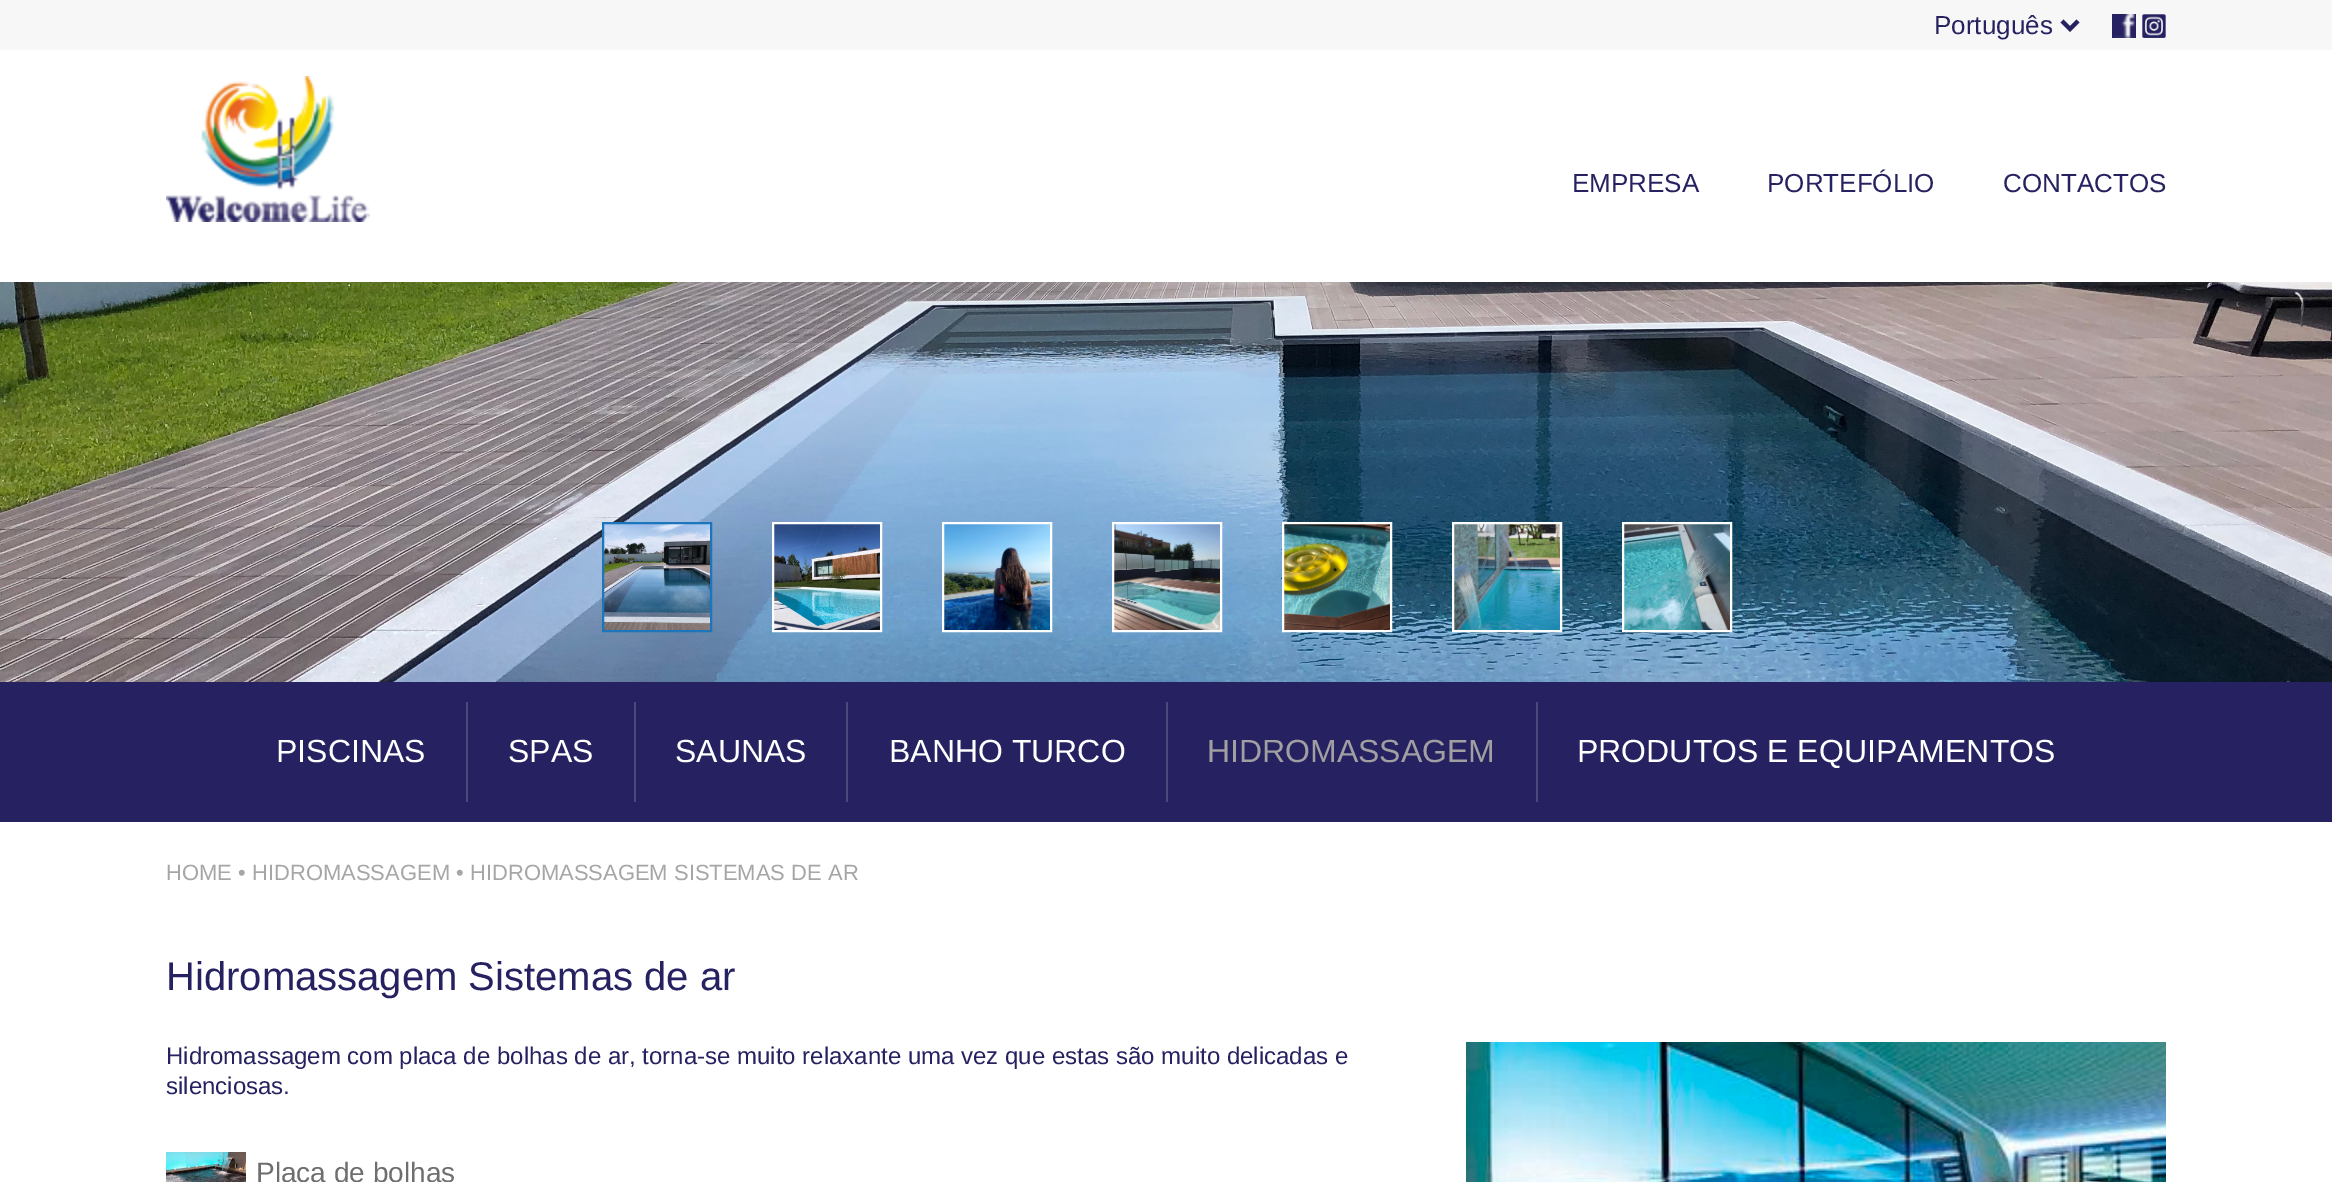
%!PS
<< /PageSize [2332 1182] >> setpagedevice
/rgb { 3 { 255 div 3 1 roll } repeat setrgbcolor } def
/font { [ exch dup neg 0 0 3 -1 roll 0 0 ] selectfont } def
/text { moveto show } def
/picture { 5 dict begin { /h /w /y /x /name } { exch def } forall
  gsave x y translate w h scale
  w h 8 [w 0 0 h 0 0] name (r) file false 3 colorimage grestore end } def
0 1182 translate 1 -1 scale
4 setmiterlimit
255 255 255 rgb
0 0 2332 1182 rectfill
247 247 247 rgb
0 0 2332 50 rectfill
38 34 97 rgb
4 setlinewidth
2062 21 moveto 8 8 rlineto 8 -8 rlineto stroke
(img_01.rgb) 2112 14 24 24 picture
(img_02.rgb) 2142 14 24 24 picture
(img_03.rgb) 166 76 204 146 picture
(img_04.rgb) 0 282 2332 400 picture
(img_05.rgb) 604 524 106 106 picture
29 118 187 rgb
2 setlinewidth
603 523 108 108 rectstroke
(img_06.rgb) 774 524 106 106 picture
255 255 255 rgb
773 523 108 108 rectstroke
(img_07.rgb) 944 524 106 106 picture
943 523 108 108 rectstroke
(img_08.rgb) 1114 524 106 106 picture
1113 523 108 108 rectstroke
(img_09.rgb) 1284 524 106 106 picture
1283 523 108 108 rectstroke
(img_10.rgb) 1454 524 106 106 picture
1453 523 108 108 rectstroke
(img_11.rgb) 1624 524 106 106 picture
1623 523 108 108 rectstroke
38 34 97 rgb
0 682 2332 140 rectfill
75 72 124 rgb
466 702 2 100 rectfill
634 702 2 100 rectfill
846 702 2 100 rectfill
1166 702 2 100 rectfill
1536 702 2 100 rectfill
(img_12.rgb) 166 1152 80 30 picture
(img_13.rgb) 1466 1042 700 140 picture
/LiberationSans-Regular 26 font
38 34 97 rgb
(Português) 1934 34 text
(EMPRESA) 1572 192 text
(PORTEFÓLIO) 1767 192 text
(CONTACTOS) 2003 192 text
/LiberationSans-Regular 32 font
255 255 255 rgb
(PISCINAS) 276 762 text
(SPAS) 508 762 text
(SAUNAS) 675 762 text
(BANHO TURCO) 889 762 text
161 159 162 rgb
(HIDROMASSAGEM) 1207 762 text
255 255 255 rgb
(PRODUTOS E EQUIPAMENTOS) 1577 762 text
/LiberationSans-Regular 22 font
167 166 166 rgb
(HOME • HIDROMASSAGEM • HIDROMASSAGEM SISTEMAS DE AR) 166 880 text
/LiberationSans-Regular 40 font
38 34 97 rgb
(Hidromassagem Sistemas de ar) 166 990 text
/LiberationSans-Regular 24 font
(Hidromassagem com placa de bolhas de ar, torna-se muito relaxante uma vez que estas são muito delicadas e) 166 1064 text
(silenciosas.) 166 1094 text
/LiberationSans-Regular 28 font
109 110 112 rgb
(Placa de bolhas) 256 1182 text
showpage
